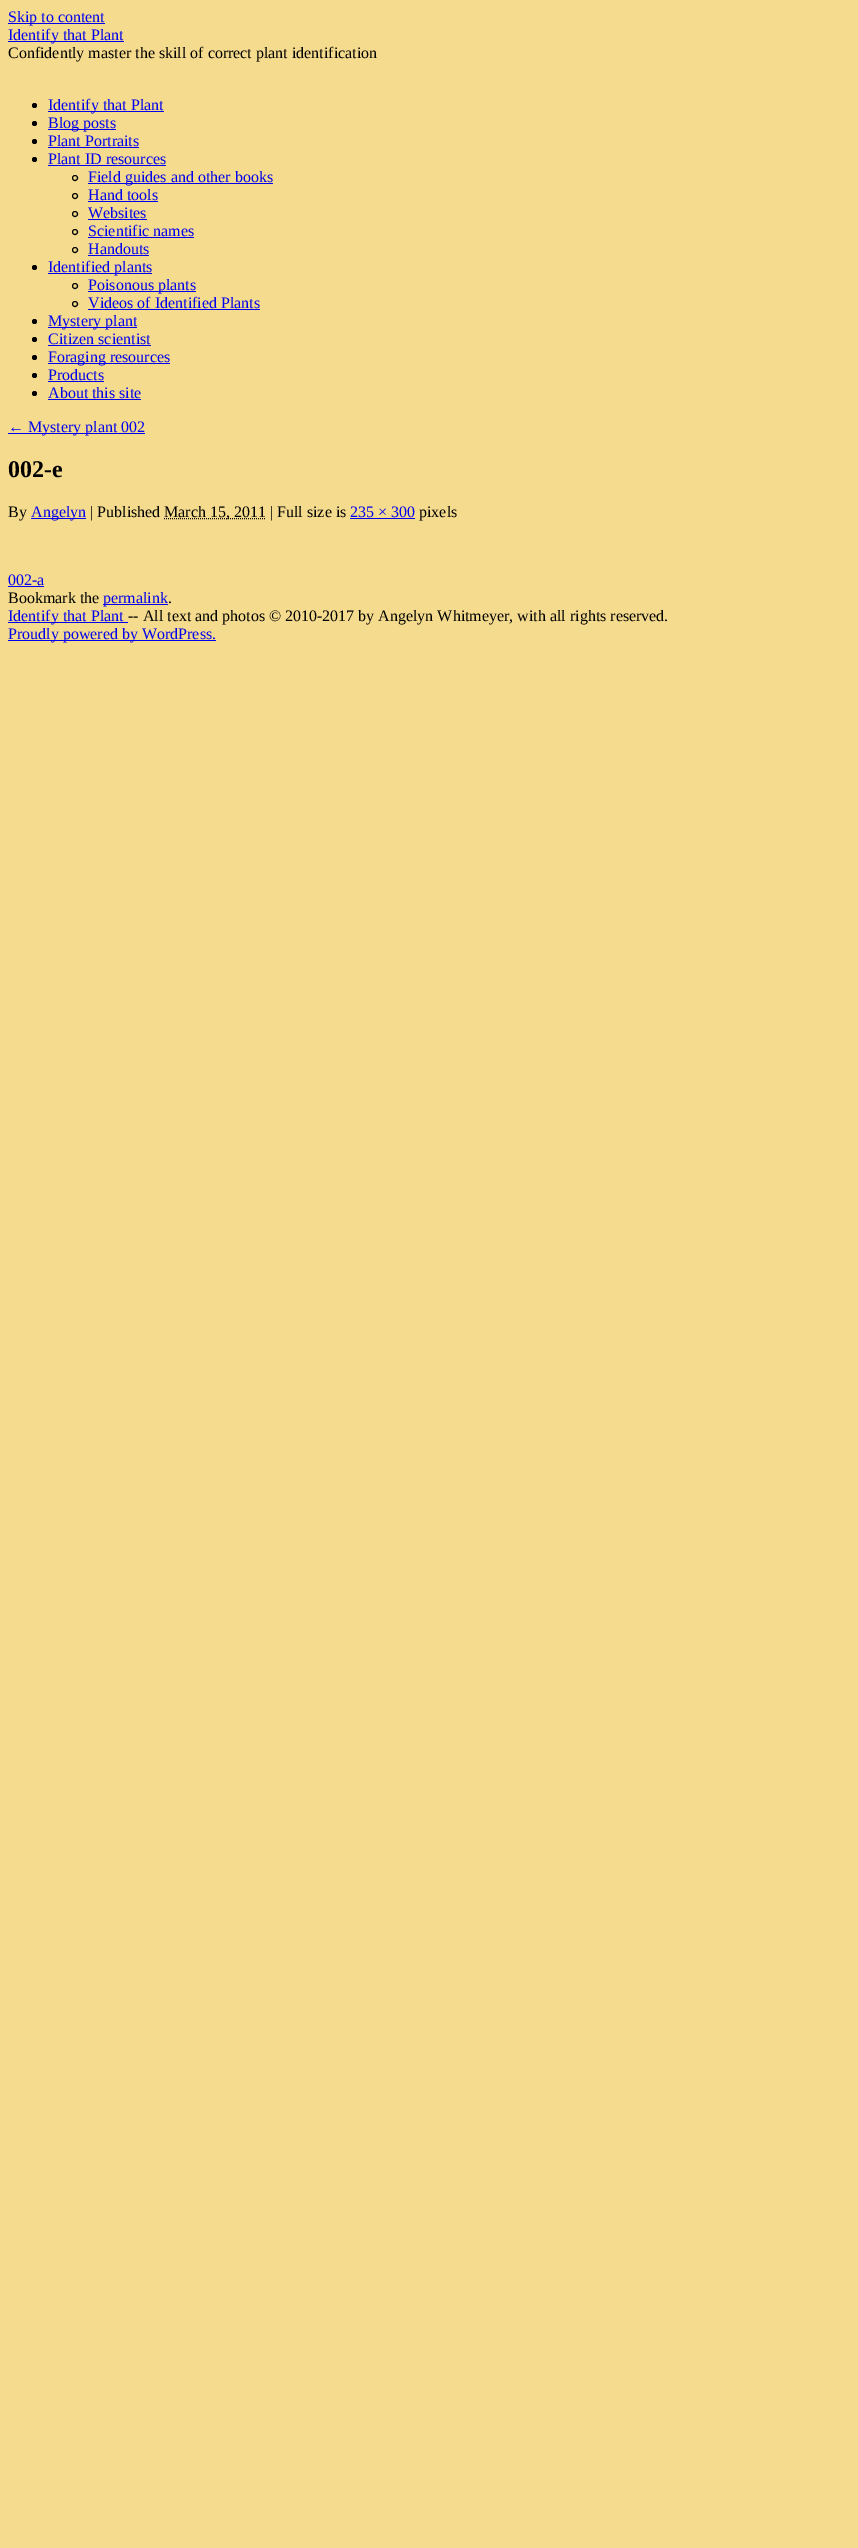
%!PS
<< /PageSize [858 2548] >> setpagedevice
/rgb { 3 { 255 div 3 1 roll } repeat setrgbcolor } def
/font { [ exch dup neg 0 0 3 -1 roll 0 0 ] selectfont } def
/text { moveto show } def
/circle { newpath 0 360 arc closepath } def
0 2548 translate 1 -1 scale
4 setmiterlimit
245 219 141 rgb
0 0 858 2548 rectfill
0 0 238 rgb
8 23 97 1 rectfill
8 41 116 1 rectfill
0 0 0 rgb
34.5 105.5 2.5 circle fill
0 0 238 rgb
48 111 116 1 rectfill
0 0 0 rgb
34.5 123.5 2.5 circle fill
0 0 238 rgb
48 129 68 1 rectfill
0 0 0 rgb
34.5 141.5 2.5 circle fill
0 0 238 rgb
48 147 91 1 rectfill
0 0 0 rgb
34.5 159.5 2.5 circle fill
0 0 238 rgb
48 165 118 1 rectfill
0 0 0 rgb
75 178 2.5 circle stroke
0 0 238 rgb
88 183 185 1 rectfill
0 0 0 rgb
75 196 2.5 circle stroke
0 0 238 rgb
88 201 70 1 rectfill
0 0 0 rgb
75 214 2.5 circle stroke
0 0 238 rgb
88 219 59 1 rectfill
0 0 0 rgb
75 232 2.5 circle stroke
0 0 238 rgb
88 237 106 1 rectfill
0 0 0 rgb
75 250 2.5 circle stroke
0 0 238 rgb
88 255 61 1 rectfill
0 0 0 rgb
34.5 267.5 2.5 circle fill
0 0 238 rgb
48 273 104 1 rectfill
0 0 0 rgb
75 286 2.5 circle stroke
0 0 238 rgb
88 291 108 1 rectfill
0 0 0 rgb
75 304 2.5 circle stroke
0 0 238 rgb
88 309 172 1 rectfill
0 0 0 rgb
34.5 321.5 2.5 circle fill
0 0 238 rgb
48 327 89 1 rectfill
0 0 0 rgb
34.5 339.5 2.5 circle fill
0 0 238 rgb
48 345 103 1 rectfill
0 0 0 rgb
34.5 357.5 2.5 circle fill
0 0 238 rgb
48 363 122 1 rectfill
0 0 0 rgb
34.5 375.5 2.5 circle fill
0 0 238 rgb
48 381 56 1 rectfill
0 0 0 rgb
34.5 393.5 2.5 circle fill
0 0 238 rgb
48 399 93 1 rectfill
8 433 137 1 rectfill
31 518 55 1 rectfill
0 0 0 rgb
[1 1] 0 setdash
164 518.5 moveto 102 0 rlineto stroke
0 0 238 rgb
350 518 65 1 rectfill
8 586 36 1 rectfill
103 604 65 1 rectfill
8 622 120 1 rectfill
8 640 208 1 rectfill
/LiberationSerif-Regular 16 font
(Skip to content) 8 22 text
(Identify that Plant) 8 40 text
0 0 0 rgb
(Confidently master the skill of correct plant identification) 8 58 text
0 0 238 rgb
(Identify that Plant) 48 110 text
(Blog posts) 48 128 text
(Plant Portraits) 48 146 text
(Plant ID resources) 48 164 text
(Field guides and other books) 88 182 text
(Hand tools) 88 200 text
(Websites) 88 218 text
(Scientific names) 88 236 text
(Handouts) 88 254 text
(Identified plants) 48 272 text
(Poisonous plants) 88 290 text
(Videos of Identified Plants) 88 308 text
(Mystery plant) 48 326 text
(Citizen scientist) 48 344 text
(Foraging resources) 48 362 text
(Products) 48 380 text
(About this site) 48 398 text
(← Mystery plant 002) 8 432 text
/LiberationSerif-Bold 24 font
0 0 0 rgb
(002-e) 8 477 text
/LiberationSerif-Regular 16 font
(By) 8 517 text
0 0 238 rgb
(Angelyn) 31 517 text
0 0 0 rgb
(| Published) 90 517 text
(March 15, 2011 | Full size is) 164 517 text
0 0 238 rgb
(235 × 300) 350 517 text
0 0 0 rgb
(pixels) 419 517 text
0 0 238 rgb
(002-a) 8 585 text
0 0 0 rgb
(Bookmark the) 8 603 text
0 0 238 rgb
(permalink) 103 603 text
0 0 0 rgb
(.) 168 603 text
0 0 238 rgb
(Identify that Plant) 8 621 text
0 0 0 rgb
(-- All text and photos © 2010-2017 by Angelyn Whitmeyer, with all rights reserved.) 128 621 text
0 0 238 rgb
(Proudly powered by WordPress.) 8 639 text
showpage
